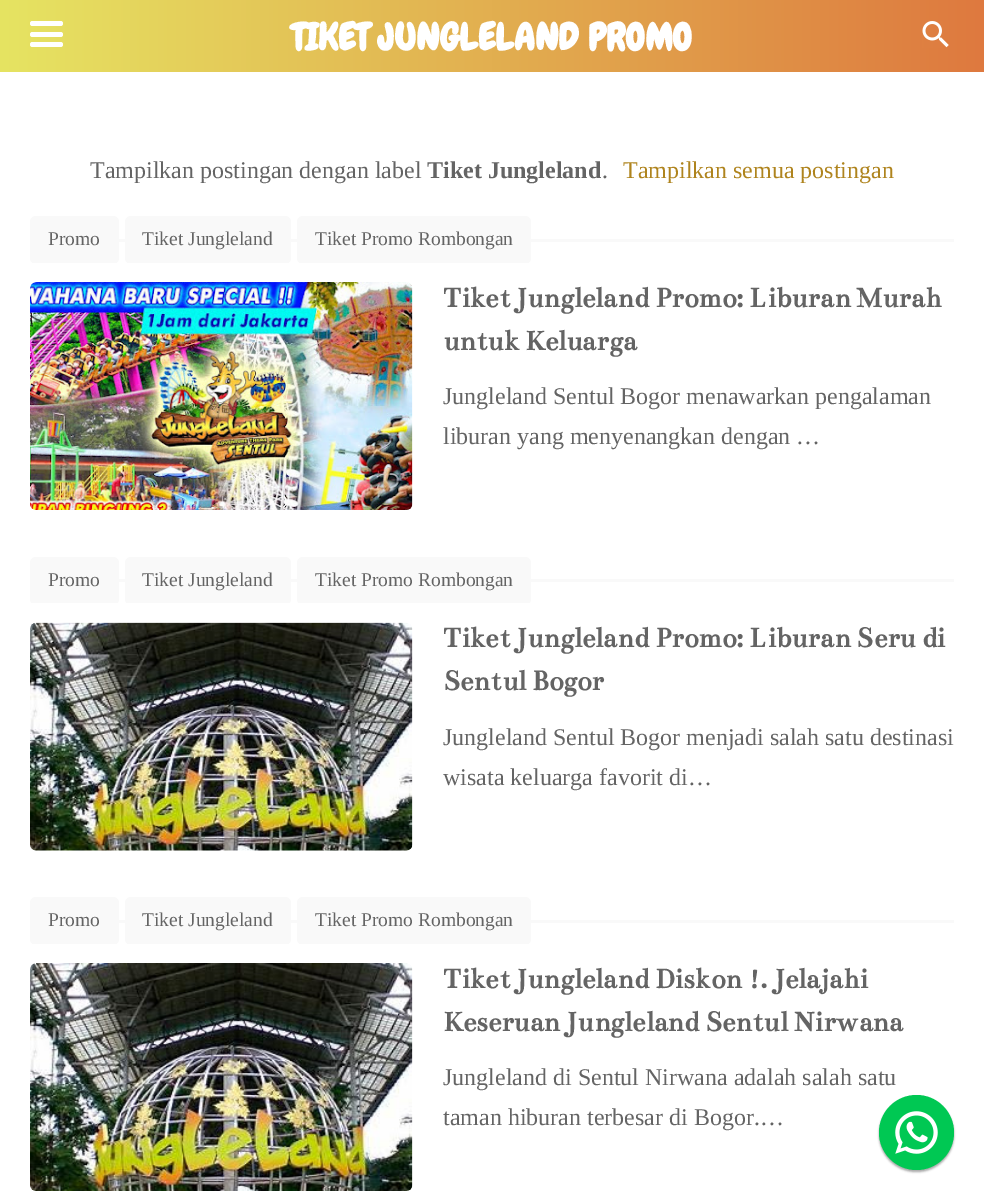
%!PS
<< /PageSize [984 1200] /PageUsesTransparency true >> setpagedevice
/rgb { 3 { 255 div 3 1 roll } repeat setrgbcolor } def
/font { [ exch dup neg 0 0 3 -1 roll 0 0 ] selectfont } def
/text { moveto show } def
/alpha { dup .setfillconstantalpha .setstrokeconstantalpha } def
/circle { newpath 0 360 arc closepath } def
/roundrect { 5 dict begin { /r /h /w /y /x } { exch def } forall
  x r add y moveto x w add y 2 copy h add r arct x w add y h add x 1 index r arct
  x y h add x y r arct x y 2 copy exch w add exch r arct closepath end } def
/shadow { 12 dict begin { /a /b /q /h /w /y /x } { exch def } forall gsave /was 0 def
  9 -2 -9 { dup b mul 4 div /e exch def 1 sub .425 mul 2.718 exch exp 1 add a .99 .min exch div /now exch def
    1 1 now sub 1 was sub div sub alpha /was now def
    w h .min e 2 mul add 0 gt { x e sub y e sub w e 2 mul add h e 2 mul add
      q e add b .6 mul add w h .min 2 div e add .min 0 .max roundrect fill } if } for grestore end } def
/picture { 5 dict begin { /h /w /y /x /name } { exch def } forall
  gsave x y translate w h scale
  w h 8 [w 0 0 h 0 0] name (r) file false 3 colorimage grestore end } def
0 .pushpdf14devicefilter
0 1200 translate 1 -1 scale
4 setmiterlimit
255 255 255 rgb
0 0 984 1200 rectfill
gsave 0 0 moveto 984 0 rlineto 0 72 rlineto -984 0 rlineto closepath clip newpath
<< /ShadingType 2 /ColorSpace /DeviceRGB /Coords [0 36 984 36] /Extend [true true] /Function << /FunctionType 2 /Domain [0 1] /C0 [0.902 0.894 0.384] /C1 [0.871 0.475 0.247] /N 1 >> >> shfill grestore
30 21 33 5 2.5 roundrect fill
30 32 33 5 2.5 roundrect fill
30 42 33 5 2.5 roundrect fill
(img_01.rgb) 922 21 27 27 picture
gsave
30 215 924 48 rectclip
249 249 249 rgb
30 216 89 48 6 roundrect fill
grestore
249 249 249 rgb
119 239 835 3 rectfill
gsave
30 215 924 48 rectclip
125 216 166 48 6 roundrect fill
297 216 234 48 6 roundrect fill
grestore
(img_02.rgb) 30 282 383 228 picture
gsave
30 555 924 48 rectclip
30 557 89 48 6 roundrect fill
grestore
119 579 835 3 rectfill
gsave
30 555 924 48 rectclip
125 557 166 48 6 roundrect fill
297 557 234 48 6 roundrect fill
grestore
(img_03.rgb) 30 622 383 229 picture
gsave
30 896 924 48 rectclip
30 897 89 48 6 roundrect fill
grestore
119 920 835 3 rectfill
gsave
30 896 924 48 rectclip
125 897 166 48 6 roundrect fill
297 897 234 48 6 roundrect fill
grestore
(img_04.rgb) 30 963 383 228 picture
0 0 0 rgb
879 1097 75 75 37.5 1 0.24 shadow
879 1097 75 75 37.5 1 0.12 shadow
0 200 83 rgb
916.5 1132.5 37.5 circle fill
(img_05.rgb) 895 1111 43 43 picture
/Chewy-Bold 37.5 font
255 255 255 rgb
(TIKET JUNGLELAND PROMO) 291 50 text
/LiberationSerif-Regular 24 font
100 100 100 rgb
(Tampilkan postingan dengan label) 90 178 text
/LiberationSerif-Bold 24 font
(Tiket Jungleland) 427 178 text
/LiberationSerif-Regular 24 font
(.) 602 178 text
175 132 30 rgb
(Tampilkan semua postingan) 623 178 text
/LiberationSerif-Regular 19.5 font
100 100 100 rgb
(Promo) 48 245 text
(Tiket Jungleland) 142 245 text
(Tiket Promo Rombongan) 315 245 text
/Bentham-Bold 30 font
(Tiket Jungleland Promo: Liburan Murah) 443 307 text
(untuk Keluarga) 443 350 text
/LiberationSerif-Regular 24 font
(Jungleland Sentul Bogor menawarkan pengalaman) 443 404 text
(liburan yang menyenangkan dengan …) 443 444 text
/LiberationSerif-Regular 19.5 font
(Promo) 48 586 text
(Tiket Jungleland) 142 586 text
(Tiket Promo Rombongan) 315 586 text
/Bentham-Bold 30 font
(Tiket Jungleland Promo: Liburan Seru di) 443 647 text
(Sentul Bogor) 443 690 text
/LiberationSerif-Regular 24 font
(Jungleland Sentul Bogor menjadi salah satu destinasi) 443 745 text
(wisata keluarga favorit di…) 443 785 text
/LiberationSerif-Regular 19.5 font
(Promo) 48 926 text
(Tiket Jungleland) 142 926 text
(Tiket Promo Rombongan) 315 926 text
/Bentham-Bold 30 font
(Tiket Jungleland Diskon !. Jelajahi) 443 988 text
(Keseruan Jungleland Sentul Nirwana) 443 1031 text
/LiberationSerif-Regular 24 font
(Jungleland di Sentul Nirwana adalah salah satu) 443 1085 text
(taman hiburan terbesar di Bogor.…) 443 1125 text
.poppdf14devicefilter showpage
